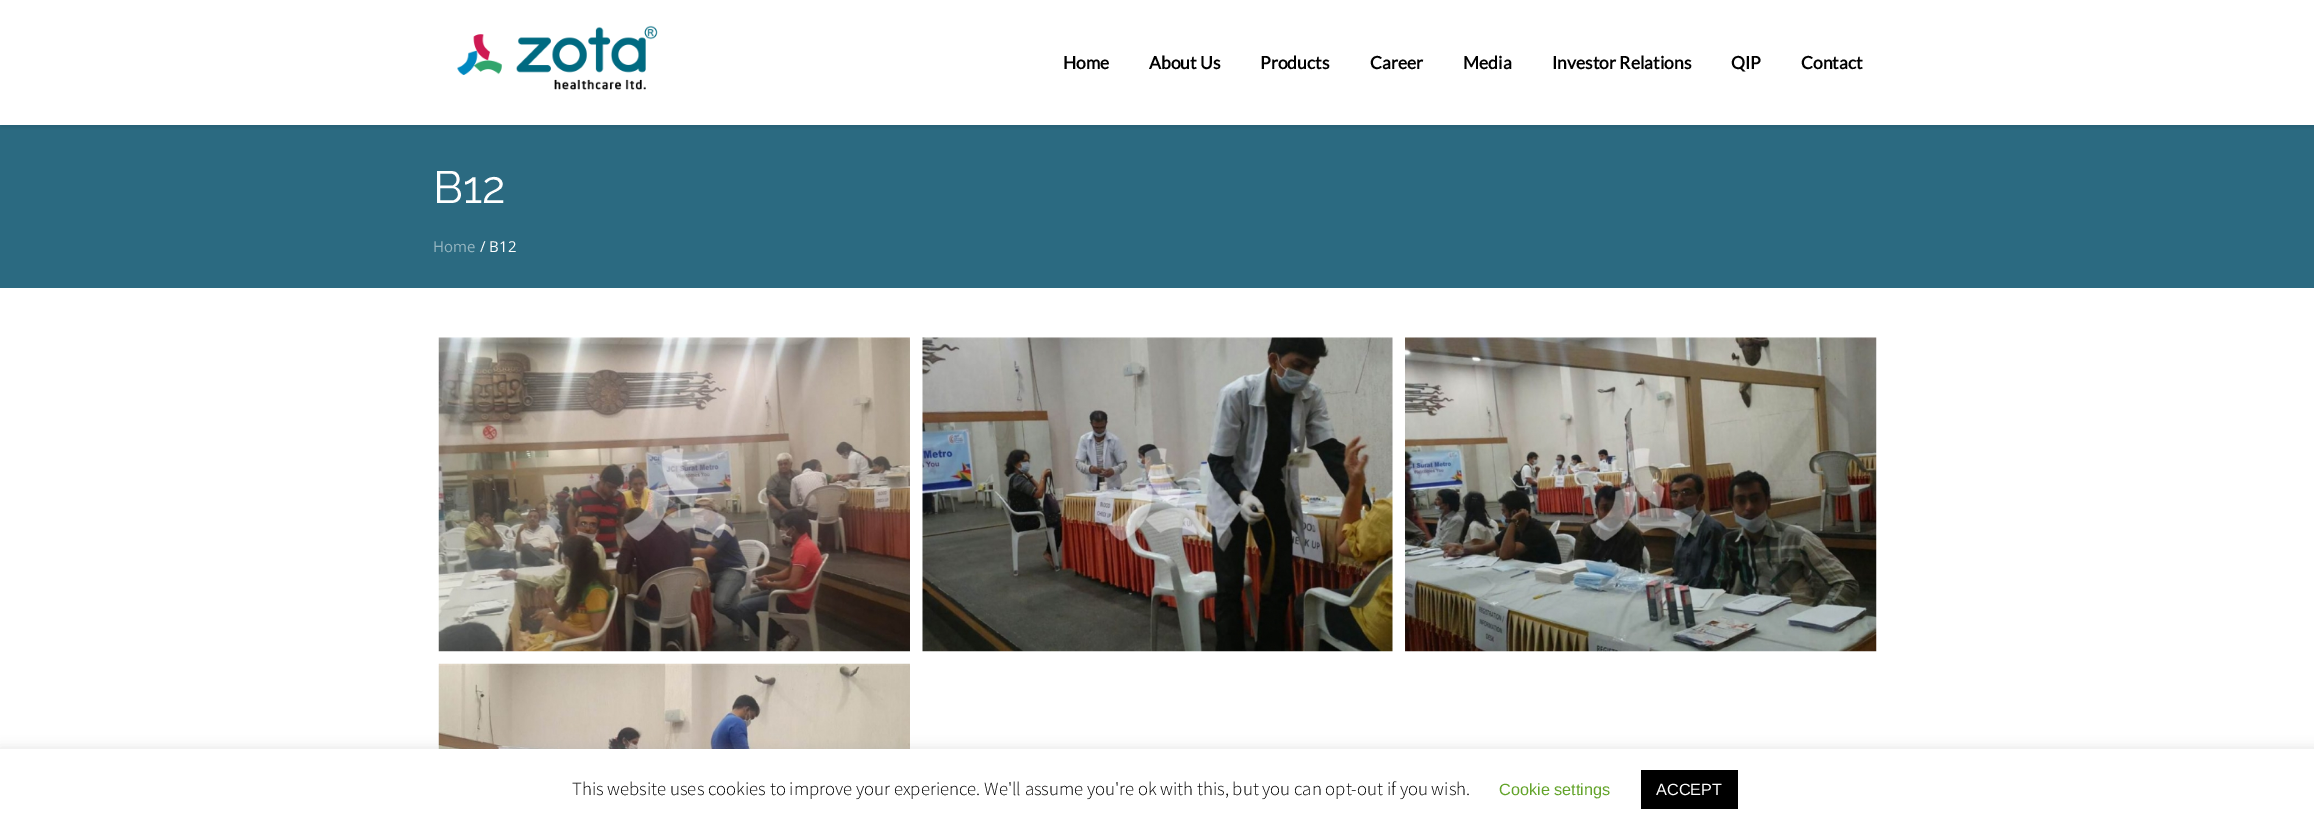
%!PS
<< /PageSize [2314 830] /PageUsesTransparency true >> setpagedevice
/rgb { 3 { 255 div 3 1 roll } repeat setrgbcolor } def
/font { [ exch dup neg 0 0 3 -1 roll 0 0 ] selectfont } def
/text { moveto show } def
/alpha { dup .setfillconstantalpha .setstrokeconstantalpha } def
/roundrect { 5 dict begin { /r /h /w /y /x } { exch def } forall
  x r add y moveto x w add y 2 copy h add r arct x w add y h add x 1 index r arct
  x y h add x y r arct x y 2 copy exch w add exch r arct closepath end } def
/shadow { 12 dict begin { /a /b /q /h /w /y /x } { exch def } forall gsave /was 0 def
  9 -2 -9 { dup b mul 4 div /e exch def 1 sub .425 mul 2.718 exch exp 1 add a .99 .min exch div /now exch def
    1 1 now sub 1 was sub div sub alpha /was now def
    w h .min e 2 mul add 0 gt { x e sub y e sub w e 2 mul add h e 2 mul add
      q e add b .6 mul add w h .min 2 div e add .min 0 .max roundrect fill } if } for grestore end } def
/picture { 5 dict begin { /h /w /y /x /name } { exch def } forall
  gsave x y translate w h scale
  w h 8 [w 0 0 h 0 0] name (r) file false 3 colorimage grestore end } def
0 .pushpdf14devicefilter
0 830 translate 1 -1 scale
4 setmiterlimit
255 255 255 rgb
0 0 2314 830 rectfill
43 106 129 rgb
0 125 2314 163 rectfill
gsave
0 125 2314 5 rectclip
0 0 0 rgb
0 3 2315 125 0 2 0.1 shadow
grestore
(img_01.rgb) 457 25 201 65 picture
(img_02.rgb) 438 337 472 315 picture
(img_03.rgb) 922 337 471 315 picture
(img_04.rgb) 1405 337 472 315 picture
(img_05.rgb) 438 663 472 86 picture
172 171 171 rgb
0 748 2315 81 0 6 0.3 shadow
255 255 255 rgb
0 749 2314 81 rectfill
0 0 0 rgb
1641 770 97 39 rectfill
/Lato-Bold 17.5 font
(Home) 1063 69 text
(About Us) 1149 69 text
(Products) 1260 69 text
(Career) 1370 69 text
(Media) 1463 69 text
(Investor Relations) 1552 69 text
(QIP) 1731 69 text
(Contact) 1801 69 text
/Raleway-Thin 45 font
255 255 255 rgb
(B12) 433 203 text
/OpenSans-Regular 15 font
149 181 192 rgb
(Home) 433 252 text
255 255 255 rgb
(/ B12) 480 252 text
/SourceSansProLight-Light 18.75 font
0 0 0 rgb
(This website uses cookies to improve your experience. We'll assume you're ok with this, but you can opt-out if you wish.) 572 795 text
/LiberationSans-Regular 16.25 font
98 163 41 rgb
(Cookie settings) 1499 795 text
255 255 255 rgb
(ACCEPT) 1656 795 text
.poppdf14devicefilter showpage
